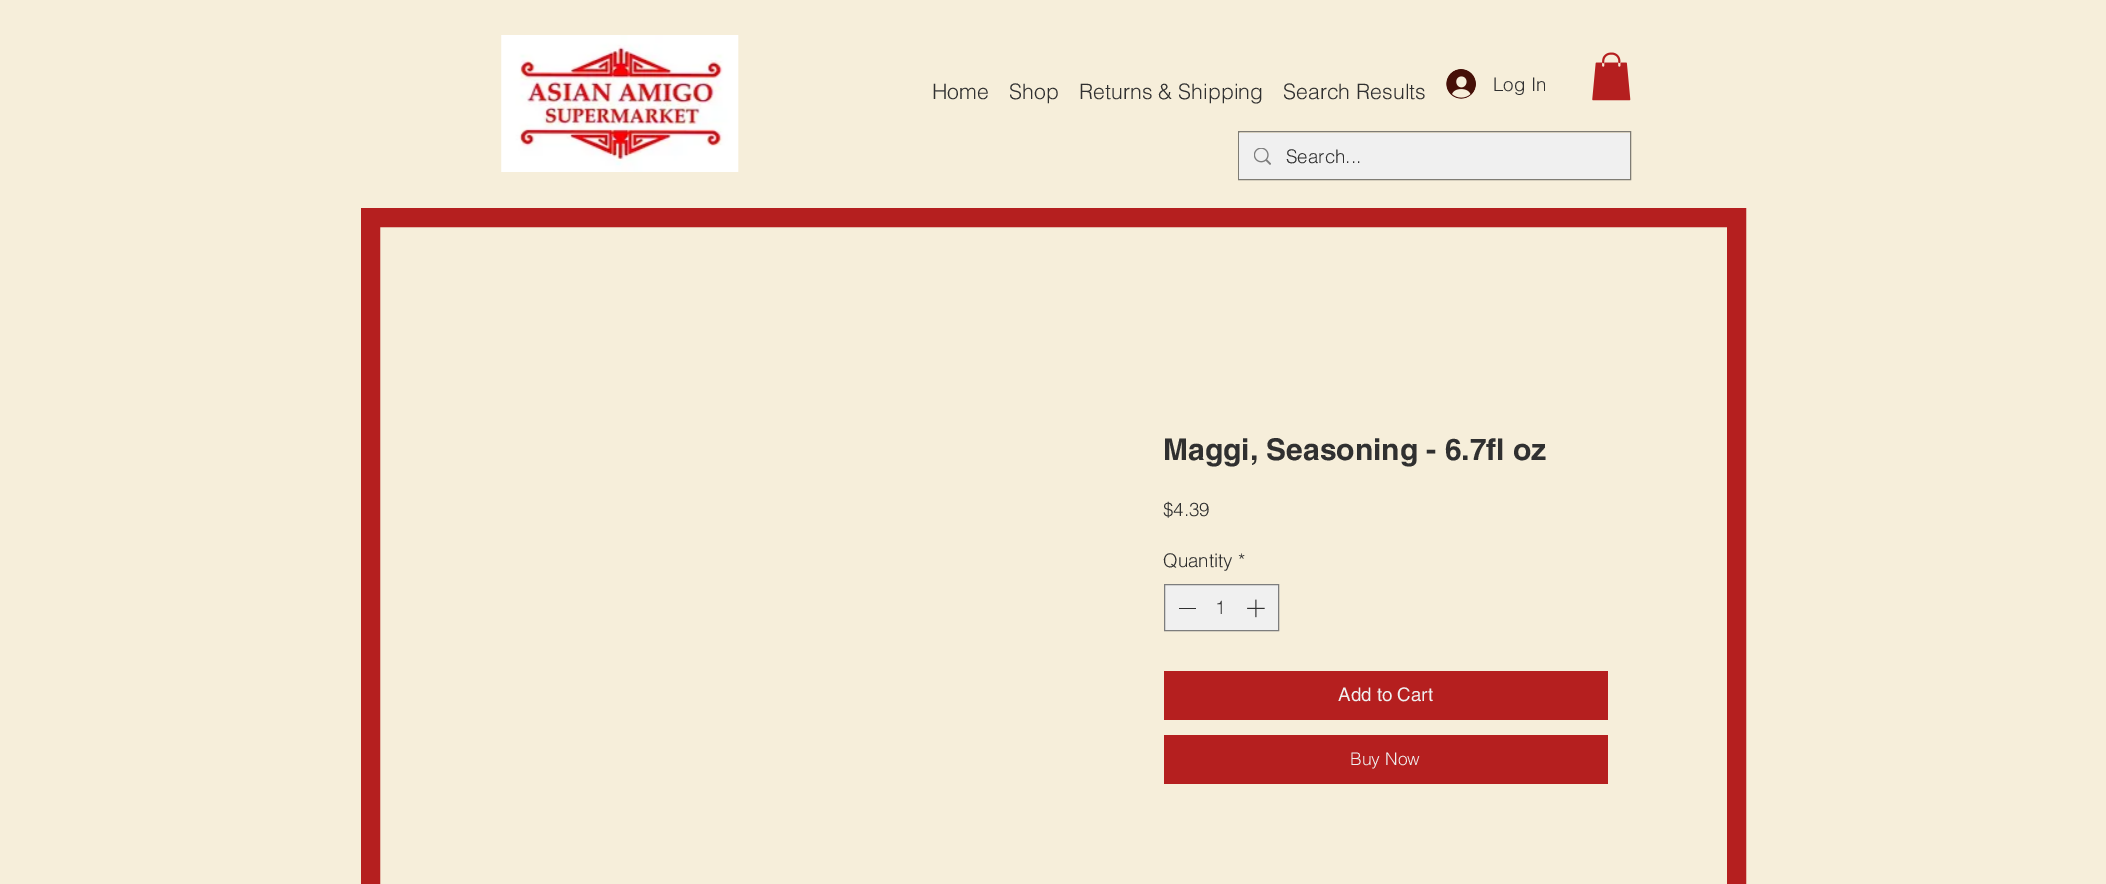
%!PS
<< /PageSize [2106 884] >> setpagedevice
/rgb { 3 { 255 div 3 1 roll } repeat setrgbcolor } def
/font { [ exch dup neg 0 0 3 -1 roll 0 0 ] selectfont } def
/text { moveto show } def
/picture { 5 dict begin { /h /w /y /x /name } { exch def } forall
  gsave x y translate w h scale
  w h 8 [w 0 0 h 0 0] name (r) file false 3 colorimage grestore end } def
0 884 translate 1 -1 scale
4 setmiterlimit
246 238 218 rgb
0 0 2106 884 rectfill
(img_01.rgb) 501 35 238 137 picture
(img_02.rgb) 1446 69 30 30 picture
(img_03.rgb) 1592 52 39 49 picture
127 124 116 rgb
1238.5 131.5 392 48 rectstroke
240 240 240 rgb
1239 133 391 46 rectfill
(img_04.rgb) 1254 148 17 17 picture
181 31 31 rgb
19 setlinewidth
370.5 217.5 1366 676 rectstroke
240 240 240 rgb
1164.5 584.5 moveto 114 0 rlineto 0 46 rlineto -114 0 rlineto closepath gsave fill grestore
125 125 125 rgb
1 setlinewidth
stroke
48 48 48 rgb
1179 608 17 1 rectfill
(img_05.rgb) 1247 599 18 19 picture
181 31 31 rgb
1164 671 444 49 rectfill
1164 735 444 49 rectfill
/helvetica-Light 21.25 font
48 48 48 rgb
(Home) 932 99 text
(Shop) 1009 99 text
(Returns & Shipping) 1079 99 text
(Search Results) 1283 99 text
/helvetica-Light 18.75 font
(Log In) 1493 91 text
(Search...) 1286 163 text
/helvetica-Bold 30 font
(Maggi, Seasoning - 6.7fl oz) 1163 460 text
/helvetica-Light 18.75 font
($4.39) 1163 516 text
(Quantity *) 1163 567 text
(1) 1215 614 text
/helvetica-Regular 18.75 font
240 240 240 rgb
(Add to Cart) 1338 701 text
/helvetica-Light 17.5 font
(Buy Now) 1350 765 text
showpage
